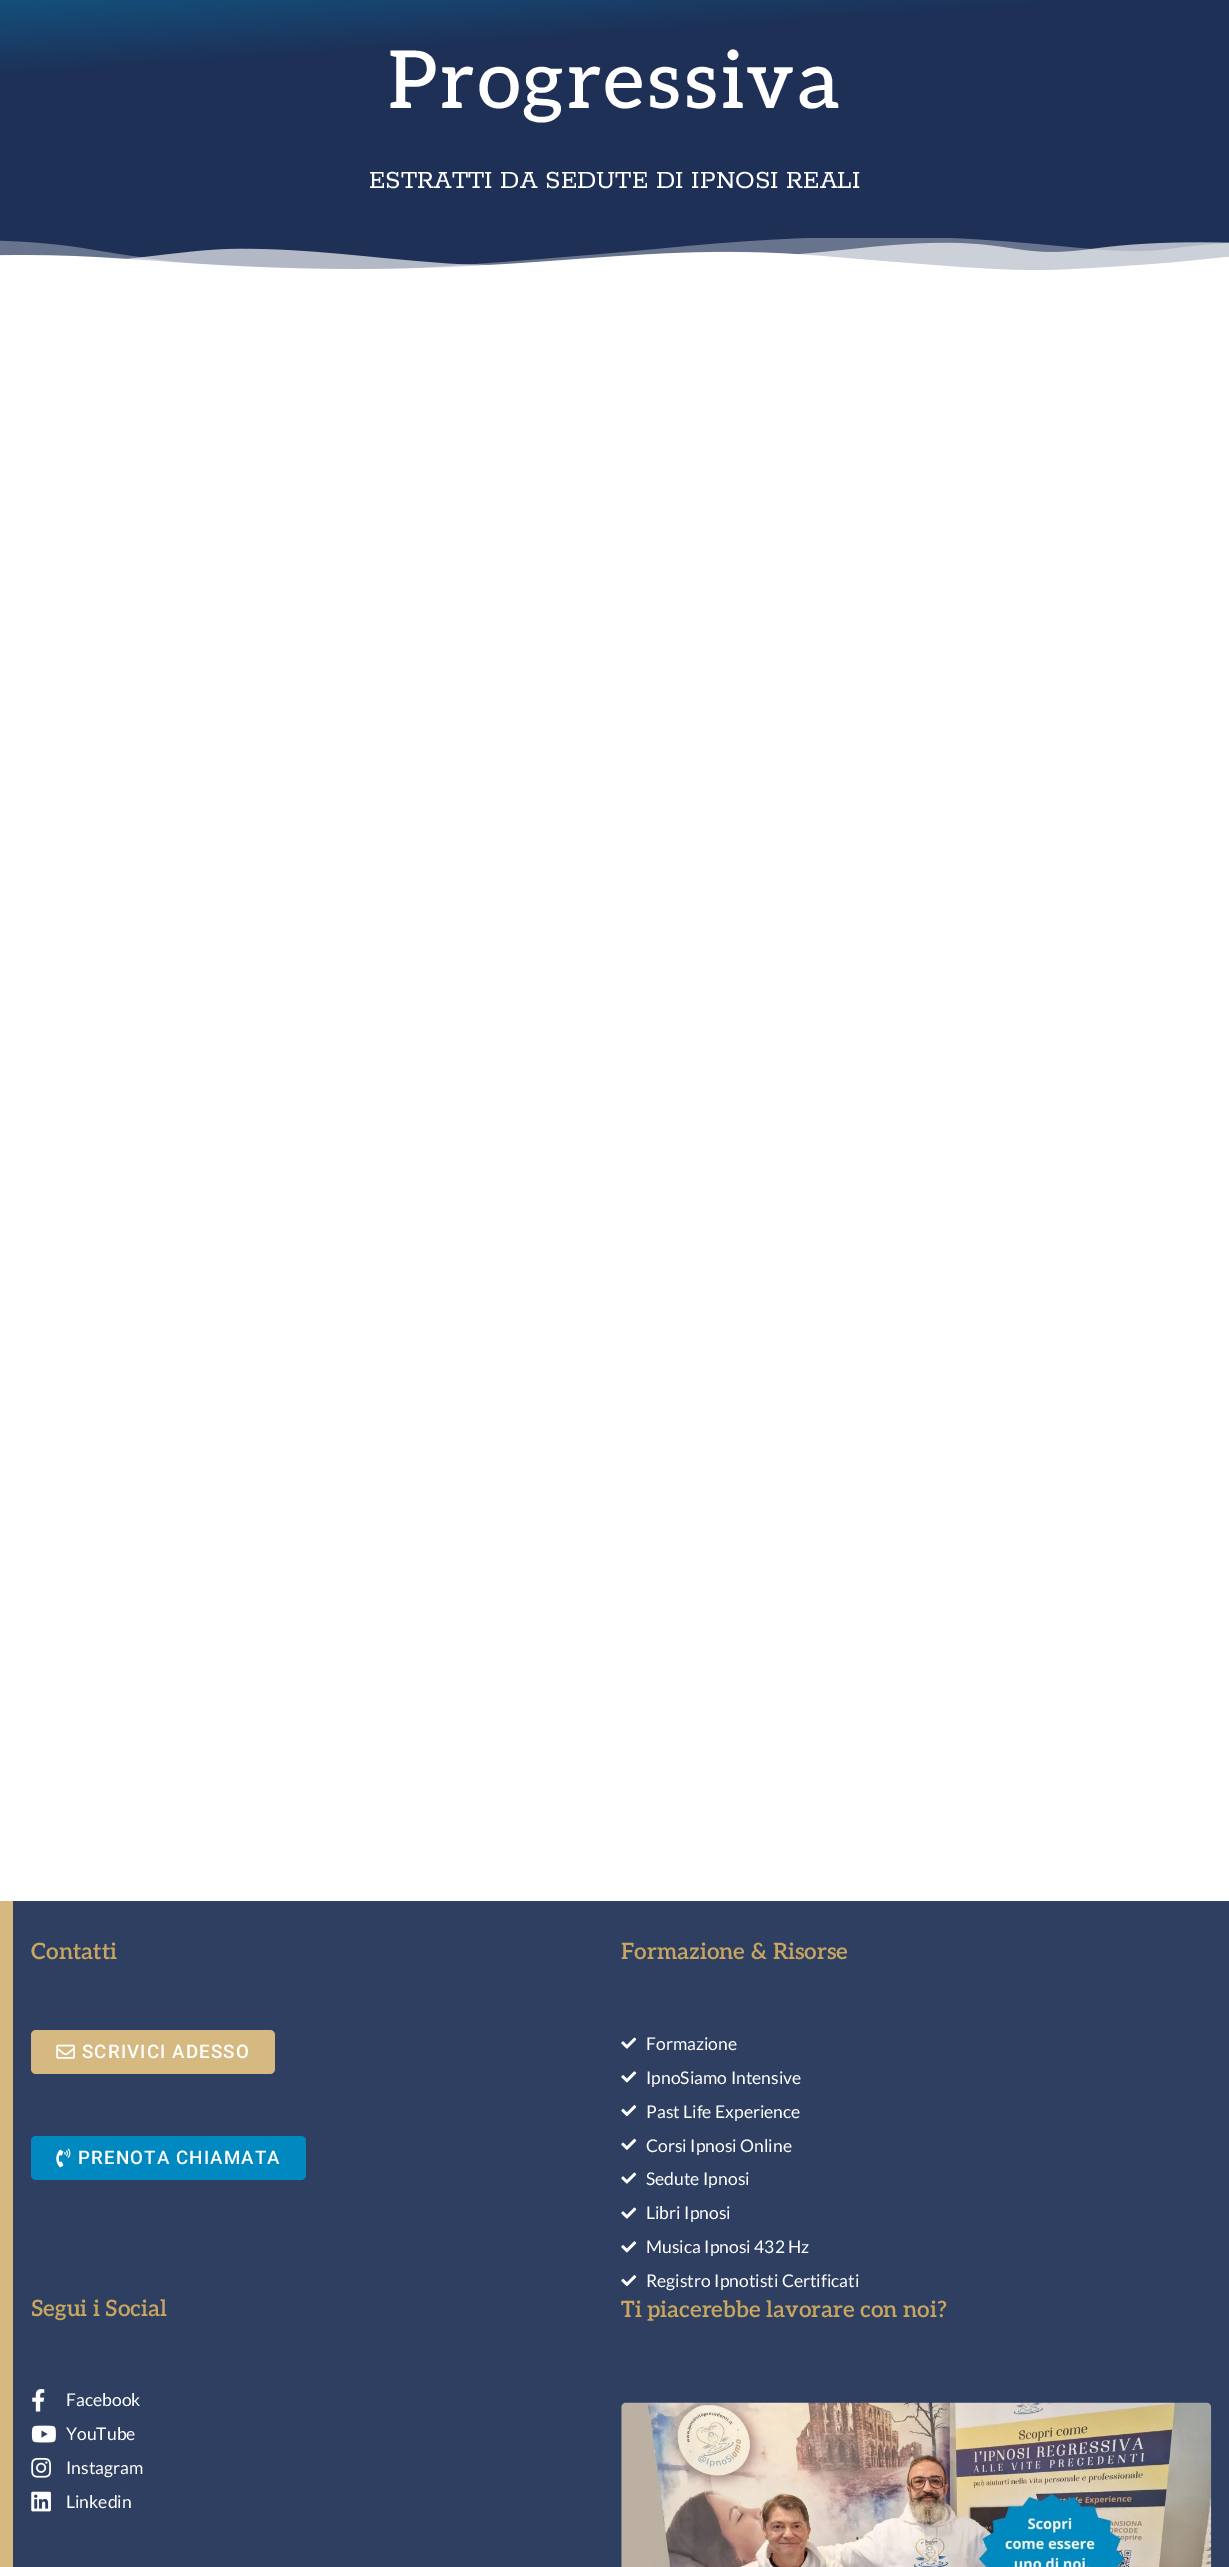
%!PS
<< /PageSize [1229 2567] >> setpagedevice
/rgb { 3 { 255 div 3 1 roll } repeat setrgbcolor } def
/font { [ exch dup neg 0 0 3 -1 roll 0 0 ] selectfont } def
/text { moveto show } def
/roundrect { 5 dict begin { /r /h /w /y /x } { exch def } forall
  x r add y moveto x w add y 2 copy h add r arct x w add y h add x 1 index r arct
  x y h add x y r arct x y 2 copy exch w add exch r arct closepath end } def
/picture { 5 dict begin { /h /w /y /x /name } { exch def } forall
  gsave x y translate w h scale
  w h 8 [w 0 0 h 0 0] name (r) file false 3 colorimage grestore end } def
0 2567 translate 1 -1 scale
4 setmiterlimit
255 255 255 rgb
0 0 1229 2567 rectfill
gsave 0 0 moveto 1229 0 rlineto 0 271 rlineto -1229 0 rlineto closepath clip newpath
<< /ShadingType 2 /ColorSpace /DeviceRGB /Coords [598 -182 632 316] /Extend [true true] /Function << /FunctionType 3 /Domain [0 1] /Functions [<< /FunctionType 2 /Domain [0 1] /C0 [0 0.537 0.757] /C1 [0.118 0.188 0.337] /N 1 >> << /FunctionType 2 /Domain [0 1] /C0 [0.118 0.188 0.337] /C1 [0.118 0.188 0.337] /N 1 >>] /Bounds [0.44] /Encode [0 1 0 1] >> >> shfill grestore
(img_01.rgb) 0 238 1229 36 picture
46 63 98 rgb
13 1901 1216 666 rectfill
214 185 129 rgb
0 1901 13 666 rectfill
31 2030 244 44 5 roundrect fill
(img_02.rgb) 56 2044 19 15 picture
0 137 193 rgb
31 2136 275 44 5 roundrect fill
(img_03.rgb) 56 2148 15 20 picture
(img_04.rgb) 621 2037 16 12 picture
(img_05.rgb) 621 2071 16 12 picture
(img_06.rgb) 621 2105 16 12 picture
(img_07.rgb) 621 2138 16 12 picture
(img_04.rgb) 621 2172 16 12 picture
(img_04.rgb) 621 2207 16 12 picture
(img_05.rgb) 621 2241 16 12 picture
(img_06.rgb) 621 2275 16 12 picture
(img_08.rgb) 32 2389 13 23 picture
(img_09.rgb) 31 2425 25 18 picture
(img_10.rgb) 31 2457 20 21 picture
(img_11.rgb) 31 2491 20 21 picture
(img_12.rgb) 621 2402 591 165 picture
/Aleo-Medium 80 font
255 255 255 rgb
388 108 moveto 2.5 0 (Progressiva) ashow
/Rokkitt-Regular 27.5 font
(ESTRATTI DA SEDUTE DI IPNOSI REALI) 369 188 text
/Aleo-SemiBold 22.5 font
200 166 95 rgb
(Contatti) 31 1959 text
/Roboto-Medium 18.75 font
255 255 255 rgb
82 2058 moveto 1.1 0 (SCRIVICI ADESSO) ashow
78 2164 moveto 1.1 0 (PRENOTA CHIAMATA) ashow
/Aleo-SemiBold 22.5 font
200 166 95 rgb
(Formazione & Risorse) 621 1959 text
/Lato-Regular 17.5 font
255 255 255 rgb
(Formazione) 646 2050 text
(IpnoSiamo Intensive) 646 2084 text
(Past Life Experience) 646 2118 text
(Corsi Ipnosi Online) 646 2152 text
(Sedute Ipnosi) 646 2185 text
(Libri Ipnosi) 646 2219 text
(Musica Ipnosi 432 Hz) 646 2253 text
(Registro Ipnotisti Certificati) 646 2287 text
/Aleo-SemiBold 22.5 font
200 166 95 rgb
(Segui i Social) 31 2316 text
/Lato-Regular 17.5 font
255 255 255 rgb
(Facebook) 66 2406 text
(YouTube) 66 2440 text
(Instagram) 66 2474 text
(Linkedin) 66 2508 text
/Aleo-SemiBold 22.5 font
200 166 95 rgb
(Ti piacerebbe lavorare con noi?) 621 2317 text
showpage
